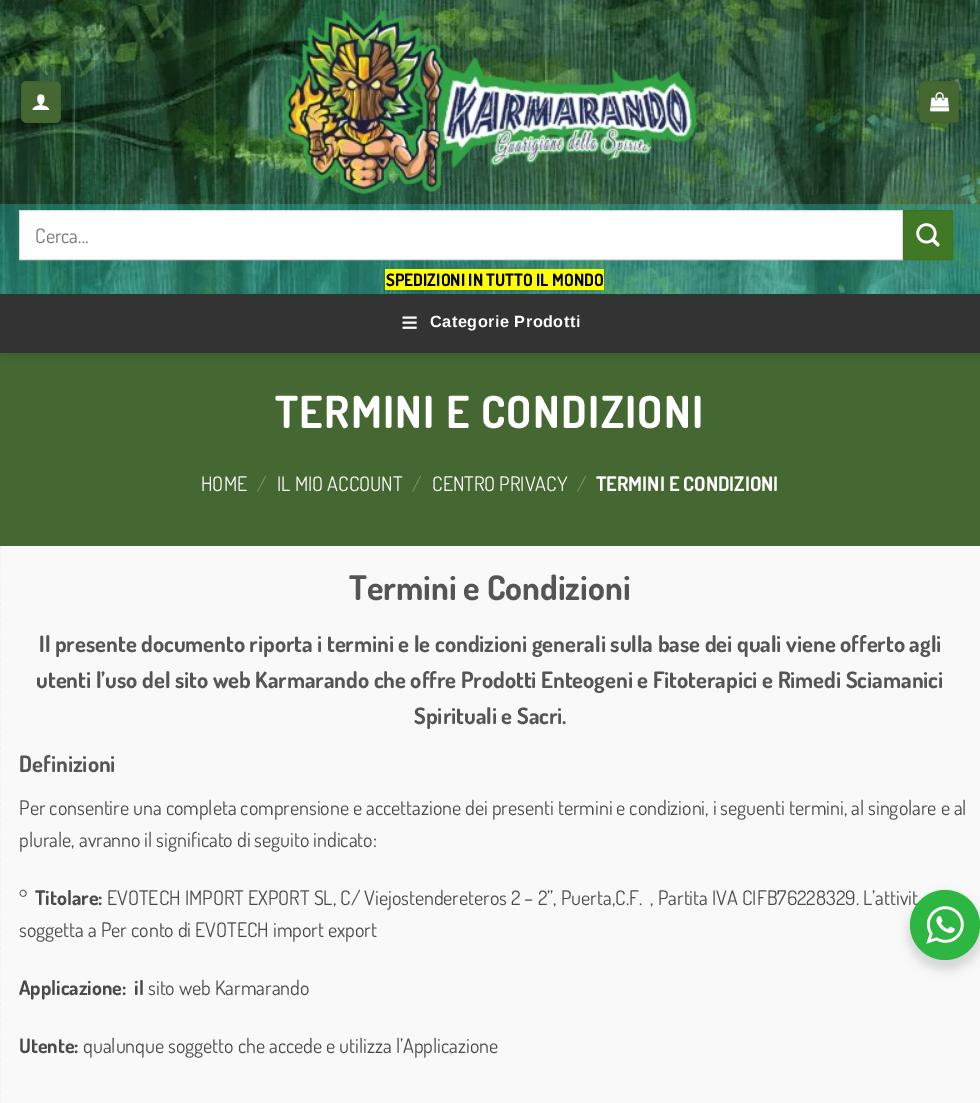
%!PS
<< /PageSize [980 1103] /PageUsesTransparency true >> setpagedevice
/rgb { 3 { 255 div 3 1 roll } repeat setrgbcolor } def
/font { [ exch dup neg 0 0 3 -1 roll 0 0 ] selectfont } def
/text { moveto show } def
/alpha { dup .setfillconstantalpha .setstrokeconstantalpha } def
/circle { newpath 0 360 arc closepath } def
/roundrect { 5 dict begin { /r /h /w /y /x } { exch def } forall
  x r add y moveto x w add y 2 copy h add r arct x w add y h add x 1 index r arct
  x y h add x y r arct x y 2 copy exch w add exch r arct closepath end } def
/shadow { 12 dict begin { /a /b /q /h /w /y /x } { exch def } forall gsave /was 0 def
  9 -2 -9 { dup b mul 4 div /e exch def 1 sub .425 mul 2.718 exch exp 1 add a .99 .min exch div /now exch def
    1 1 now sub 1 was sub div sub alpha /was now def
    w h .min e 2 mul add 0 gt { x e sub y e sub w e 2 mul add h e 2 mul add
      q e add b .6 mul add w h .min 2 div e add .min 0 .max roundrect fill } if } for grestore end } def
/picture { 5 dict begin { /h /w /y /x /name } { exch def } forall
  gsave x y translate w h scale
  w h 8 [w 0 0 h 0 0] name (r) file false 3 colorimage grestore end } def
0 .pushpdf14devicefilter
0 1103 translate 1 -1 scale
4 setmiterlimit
249 249 249 rgb
0 0 980 1103 rectfill
69 103 49 rgb
0 353 980 193 rectfill
0 0 0 rgb
1 1 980 353 0 6 0.15 shadow
(img_01.rgb) 0 0 980 294 picture
0.04 alpha
0 137 0 rgb
0 0 980 294 rectfill
1 alpha
69 103 49 rgb
21 81 40 42 6 roundrect fill
0.05 alpha
0 0 0 rgb
21.5 81.5 39 41 rectstroke
1 alpha
(img_02.rgb) 32 94 18 16 picture
(img_03.rgb) 283 10 414 184 picture
69 103 49 rgb
919 81 40 42 6 roundrect fill
0.05 alpha
0 0 0 rgb
919.5 81.5 39 41 rectstroke
1 alpha
(img_04.rgb) 930 92 20 20 picture
0.38 alpha
41 181 174 rgb
0 204 980 90 rectfill
1 alpha
255 255 255 rgb
19.5 210.5 moveto 883 0 rlineto 0 49 rlineto -883 0 rlineto closepath gsave fill grestore
221 221 221 rgb
stroke
65 120 37 rgb
903.5 210.5 moveto 49 0 rlineto 0 49 rlineto -49 0 rlineto closepath gsave fill grestore
62 114 35 rgb
stroke
(img_05.rgb) 916 223 24 24 picture
255 255 0 rgb
385 269 219 21 rectfill
51 51 51 rgb
0 294 980 59 rectfill
(img_06.rgb) 402 316 15 13 picture
221 221 221 rgb
1.2 setlinewidth
[3.75 2.5] 0 setdash
-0.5 546 moveto 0 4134 rlineto stroke
0 0 0 rgb
908 895 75 75 37.5 5 0.14 shadow
/Dosis-Regular 20 font
117 117 117 rgb
(Cerca…) 35 243 text
/Dosis-Bold 17 font
0 0 0 rgb
(SPEDIZIONI IN TUTTO IL MONDO) 386 286 text
/LiberationSans-Bold 16.25 font
255 255 255 rgb
430 327 moveto 0.5 0 (Categorie Prodotti) ashow
/Dosis-Bold 44.25 font
275 428 moveto 1.3 0 (TERMINI E CONDIZIONI) ashow
/Dosis-Regular 20 font
(HOME) 201 491 text
/Dosis-Light 20 font
134 156 121 rgb
(/) 257 491 text
/Dosis-Regular 20 font
255 255 255 rgb
(IL MIO ACCOUNT) 277 491 text
/Dosis-Light 20 font
134 156 121 rgb
(/) 412 491 text
/Dosis-Regular 20 font
255 255 255 rgb
(CENTRO PRIVACY) 432 491 text
/Dosis-Light 20 font
134 156 121 rgb
(/) 577 491 text
/Dosis-Bold 20 font
255 255 255 rgb
(TERMINI E CONDIZIONI) 596 491 text
/Dosis-Bold 34 font
85 85 85 rgb
(Termini e Condizioni) 349 600 text
/Dosis-Bold 22.5 font
(Il presente documento riporta i termini e le condizioni generali sulla base dei quali viene offerto agli) 39 652 text
(utenti l’uso del sito web Karmarando che offre Prodotti Enteogeni e Fitoterapici e Rimedi Sciamanici) 36 688 text
(Spirituali e Sacri.) 414 724 text
(Definizioni) 19 772 text
/Dosis-Regular 20 font
74 74 74 rgb
(Per consentire una completa comprensione e accettazione dei presenti termini e condizioni, i seguenti termini, al singolare e al) 19 815 text
(plurale, avranno il significato di seguito indicato:) 19 847 text
(°) 19 905 text
/Dosis-Bold 20 font
(Titolare:) 35 905 text
/Dosis-Regular 20 font
(EVOTECH IMPORT EXPORT SL, C/ Viejostendereteros 2 – 2”, Puerta,C.F.  , Partita IVA CIFB76228329. L’attivit) 107 905 text
(soggetta a Per conto di EVOTECH import export) 19 937 text
/Dosis-Bold 20 font
(Applicazione:  il) 19 995 text
/Dosis-Regular 20 font
(sito web Karmarando) 148 995 text
/Dosis-Bold 20 font
(Utente:) 19 1053 text
/Dosis-Regular 20 font
(qualunque soggetto che accede e utilizza l’Applicazione) 83 1053 text
45 183 66 rgb
945 925 35 circle fill
(img_07.rgb) 926 906 38 38 picture
.poppdf14devicefilter showpage
